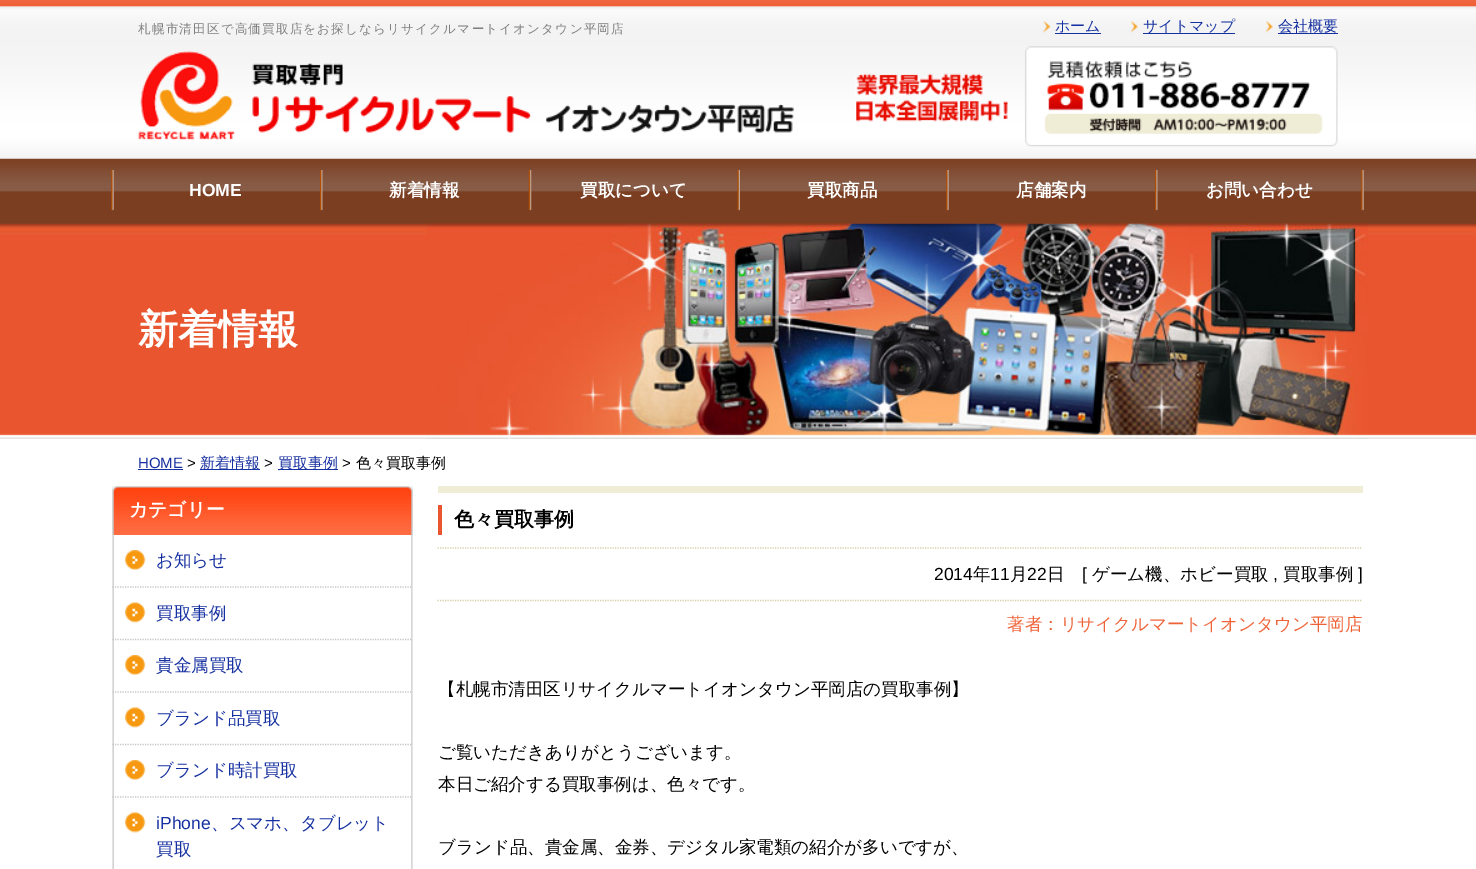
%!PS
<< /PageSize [1476 869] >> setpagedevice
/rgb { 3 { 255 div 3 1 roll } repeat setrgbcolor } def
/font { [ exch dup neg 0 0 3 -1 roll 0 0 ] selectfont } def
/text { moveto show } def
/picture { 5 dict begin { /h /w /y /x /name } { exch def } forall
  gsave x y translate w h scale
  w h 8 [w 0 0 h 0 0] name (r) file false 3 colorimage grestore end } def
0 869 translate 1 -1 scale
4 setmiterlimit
255 255 255 rgb
0 0 1476 869 rectfill
(img_01.rgb) 0 0 1476 439 picture
(img_02.rgb) 137 51 657 90 picture
(img_03.rgb) 1042 21 9 12 picture
21 48 160 rgb
1055 33 46 1 rectfill
(img_04.rgb) 1130 21 8 12 picture
1143 33 92 1 rectfill
(img_05.rgb) 1265 21 8 12 picture
1278 33 60 1 rectfill
(img_06.rgb) 855 46 483 101 picture
(img_07.rgb) 1361 170 3 41 picture
(img_07.rgb) 111 170 3 41 picture
(img_08.rgb) 320 170 3 41 picture
(img_09.rgb) 528 170 4 41 picture
(img_10.rgb) 737 170 3 41 picture
(img_07.rgb) 946 170 3 41 picture
(img_08.rgb) 1155 170 3 41 picture
(img_11.rgb) 427 223 941 216 picture
138 469 45 1 rectfill
200 469 60 1 rectfill
278 469 60 1 rectfill
(img_12.rgb) 112 486 301 383 picture
(img_13.rgb) 112 486 301 49 picture
198 198 198 rgb
1.2 setlinewidth
[1.25 1.25] 0 setdash
112.5 587 moveto 300 0 rlineto stroke
(img_14.rgb) 125 550 21 20 picture
112.5 639.5 moveto 300 0 rlineto stroke
(img_15.rgb) 125 602 21 21 picture
112.5 692 moveto 300 0 rlineto stroke
(img_14.rgb) 125 655 21 20 picture
112.5 744.5 moveto 300 0 rlineto stroke
(img_15.rgb) 125 707 21 21 picture
112.5 797 moveto 300 0 rlineto stroke
(img_14.rgb) 125 760 21 20 picture
(img_15.rgb) 125 812 21 21 picture
240 237 214 rgb
438 486 925 7 rectfill
232 85 47 rgb
438 505 4 30 rectfill
213 208 170 rgb
437.5 548 moveto 925 0 rlineto stroke
437.5 600.5 moveto 925 0 rlineto stroke
/WenQuanYiZenHei-Medium 12.5 font
127 127 127 rgb
138 33 moveto 1.25 0 (札幌市清田区で高価買取店をお探しならリサイクルマートイオンタウン平岡店) ashow
/WenQuanYiZenHei-Medium 15 font
21 48 160 rgb
(ホーム) 1055 31 text
(サイトマップ) 1143 31 text
(会社概要) 1278 31 text
/LiberationSans-Bold 17.5 font
255 255 255 rgb
(HOME) 189 196 text
/WenQuanYiZenHei-Bold 17.5 font
(新着情報) 389 196 text
(買取について) 580 196 text
(買取商品) 807 196 text
(店舗案内) 1016 196 text
(お問い合わせ) 1206 196 text
/WenQuanYiZenHei-Bold 40 font
(新着情報) 138 343 text
/LiberationSans-Regular 15 font
21 48 160 rgb
(HOME) 138 468 text
0 0 0 rgb
(>) 187 468 text
/WenQuanYiZenHei-Medium 15 font
21 48 160 rgb
(新着情報) 200 468 text
/LiberationSans-Regular 15 font
0 0 0 rgb
(>) 264 468 text
/WenQuanYiZenHei-Medium 15 font
21 48 160 rgb
(買取事例) 278 468 text
/LiberationSans-Regular 15 font
0 0 0 rgb
(>) 342 468 text
/WenQuanYiZenHei-Medium 15 font
(色々買取事例) 356 468 text
/WenQuanYiZenHei-Bold 18.75 font
255 255 255 rgb
(カテゴリー) 129 516 text
/WenQuanYiZenHei-Medium 17.5 font
21 48 160 rgb
(お知らせ) 156 566 text
(買取事例) 156 619 text
(貴金属買取) 156 671 text
(ブランド品買取) 156 724 text
(ブランド時計買取) 156 776 text
/LiberationSans-Regular 17.5 font
(iPhone) 156 829 text
/WenQuanYiZenHei-Medium 17.5 font
(、スマホ、タブレット) 211 829 text
(買取) 156 855 text
/WenQuanYiZenHei-Bold 20 font
0 0 0 rgb
(色々買取事例) 454 526 text
/LiberationSans-Regular 17.5 font
(2014) 934 580 text
/WenQuanYiZenHei-Medium 17.5 font
(年) 973 580 text
/LiberationSans-Regular 17.5 font
(11) 990 580 text
/WenQuanYiZenHei-Medium 17.5 font
(月) 1010 580 text
/LiberationSans-Regular 17.5 font
(22) 1027 580 text
/WenQuanYiZenHei-Medium 17.5 font
(日) 1047 580 text
/LiberationSans-Regular 17.5 font
([) 1082 580 text
/WenQuanYiZenHei-Medium 17.5 font
(ゲーム機、ホビー買取) 1092 580 text
/LiberationSans-Regular 17.5 font
(,) 1273 580 text
/WenQuanYiZenHei-Medium 17.5 font
(買取事例) 1283 580 text
/LiberationSans-Regular 17.5 font
(]) 1358 580 text
/WenQuanYiZenHei-Medium 17.5 font
239 99 56 rgb
(著者：リサイクルマートイオンタウン平岡店) 1007 630 text
0 0 0 rgb
(【札幌市清田区リサイクルマートイオンタウン平岡店の買取事例】) 438 695 text
(ご覧いただきありがとうございます。) 438 758 text
(本日ご紹介する買取事例は、色々です。) 438 790 text
(ブランド品、貴金属、金券、デジタル家電類の紹介が多いですが、) 438 853 text
showpage
